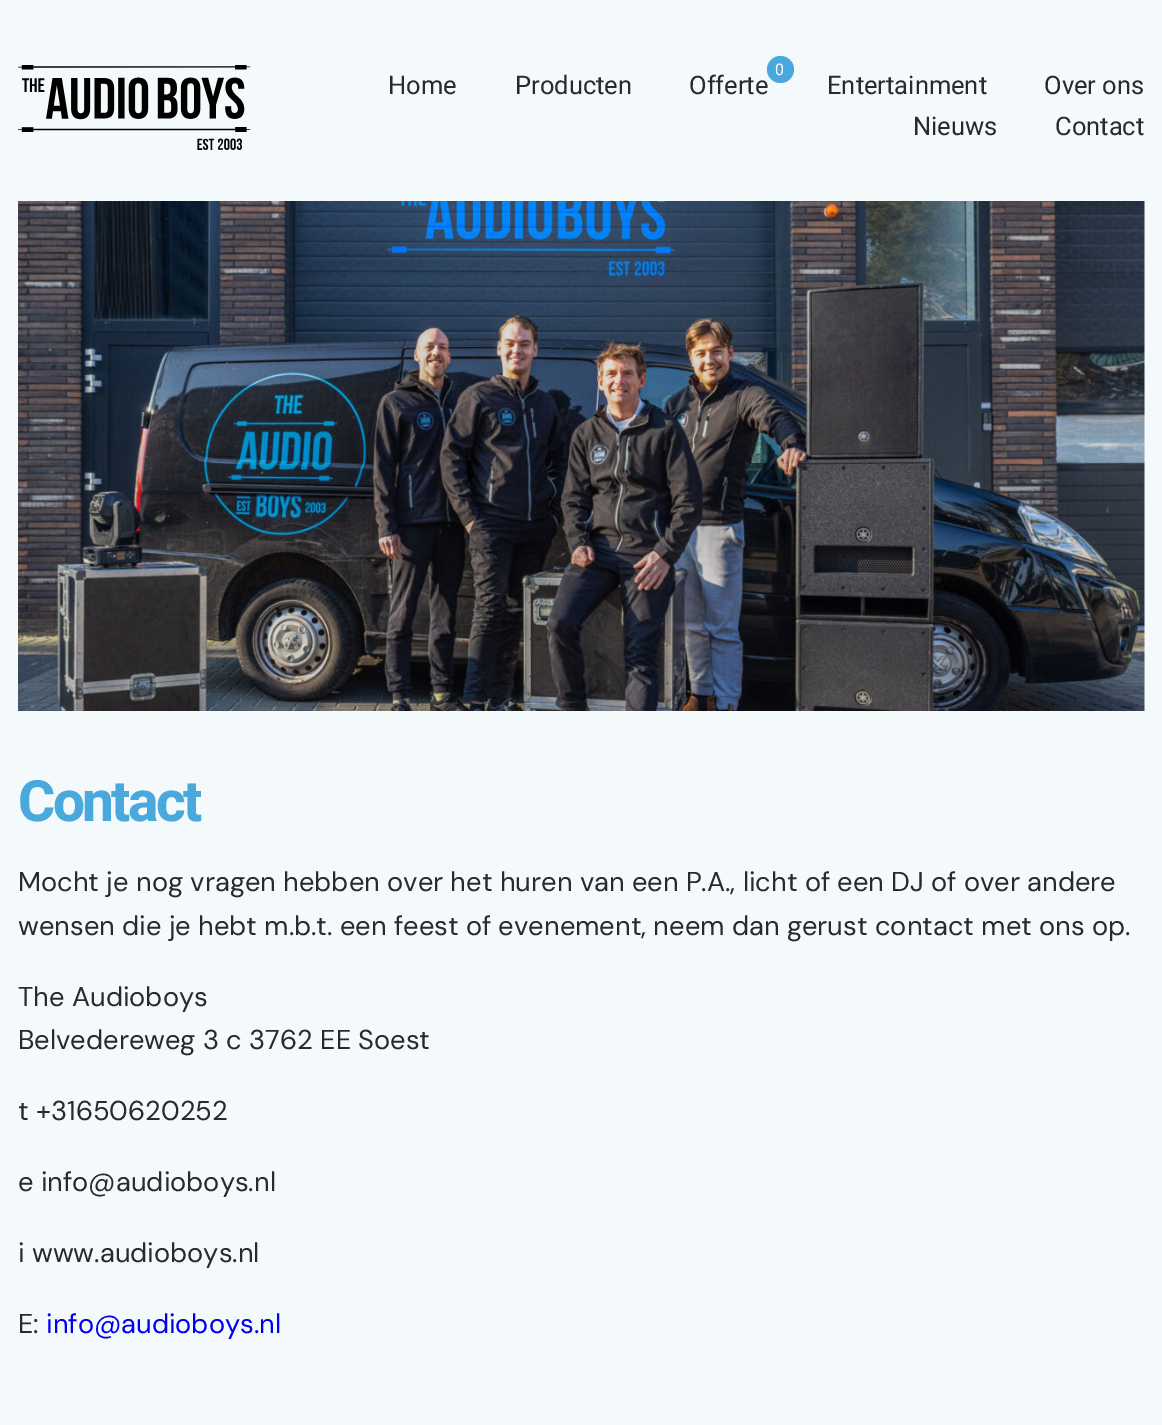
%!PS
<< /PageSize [1162 1425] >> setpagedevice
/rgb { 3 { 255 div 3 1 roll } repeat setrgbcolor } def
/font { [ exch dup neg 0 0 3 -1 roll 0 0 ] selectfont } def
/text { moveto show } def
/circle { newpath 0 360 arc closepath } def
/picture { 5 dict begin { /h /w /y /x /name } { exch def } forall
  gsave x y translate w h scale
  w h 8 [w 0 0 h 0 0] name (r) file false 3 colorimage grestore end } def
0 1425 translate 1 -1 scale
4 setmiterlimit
244 249 252 rgb
0 0 1162 1425 rectfill
(img_01.rgb) 18 65 233 85 picture
(img_02.rgb) 18 201 1127 510 picture
/Heebo-Regular 25.5 font
41 41 48 rgb
(Home) 388 94 text
(Producten) 515 94 text
(Offerte) 689 94 text
73 168 220 rgb
780.5 69.5 13.5 circle fill
/Heebo-Regular 16 font
255 255 255 rgb
(0) 775 75 text
/Heebo-Regular 25.5 font
41 41 48 rgb
(Entertainment) 827 94 text
(Over ons) 1044 94 text
(Nieuws) 913 135 text
(Contact) 1055 135 text
/Heebo-Bold 57 font
73 168 220 rgb
18 821 moveto -2.75 0 (Contact) ashow
/DMSans-Regular 27.3 font
41 41 48 rgb
(Mocht je nog vragen hebben over het huren van een P.A., licht of een DJ of over andere) 18 891 text
(wensen die je hebt m.b.t. een feest of evenement, neem dan gerust contact met ons op.) 18 935 text
(The Audioboys) 18 1006 text
(Belvedereweg 3 c 3762 EE Soest) 18 1049 text
(t +31650620252) 18 1120 text
(e info@audioboys.nl) 18 1191 text
(i www.audioboys.nl) 18 1262 text
(E:) 18 1333 text
0 0 238 rgb
(info@audioboys.nl) 46 1333 text
showpage
